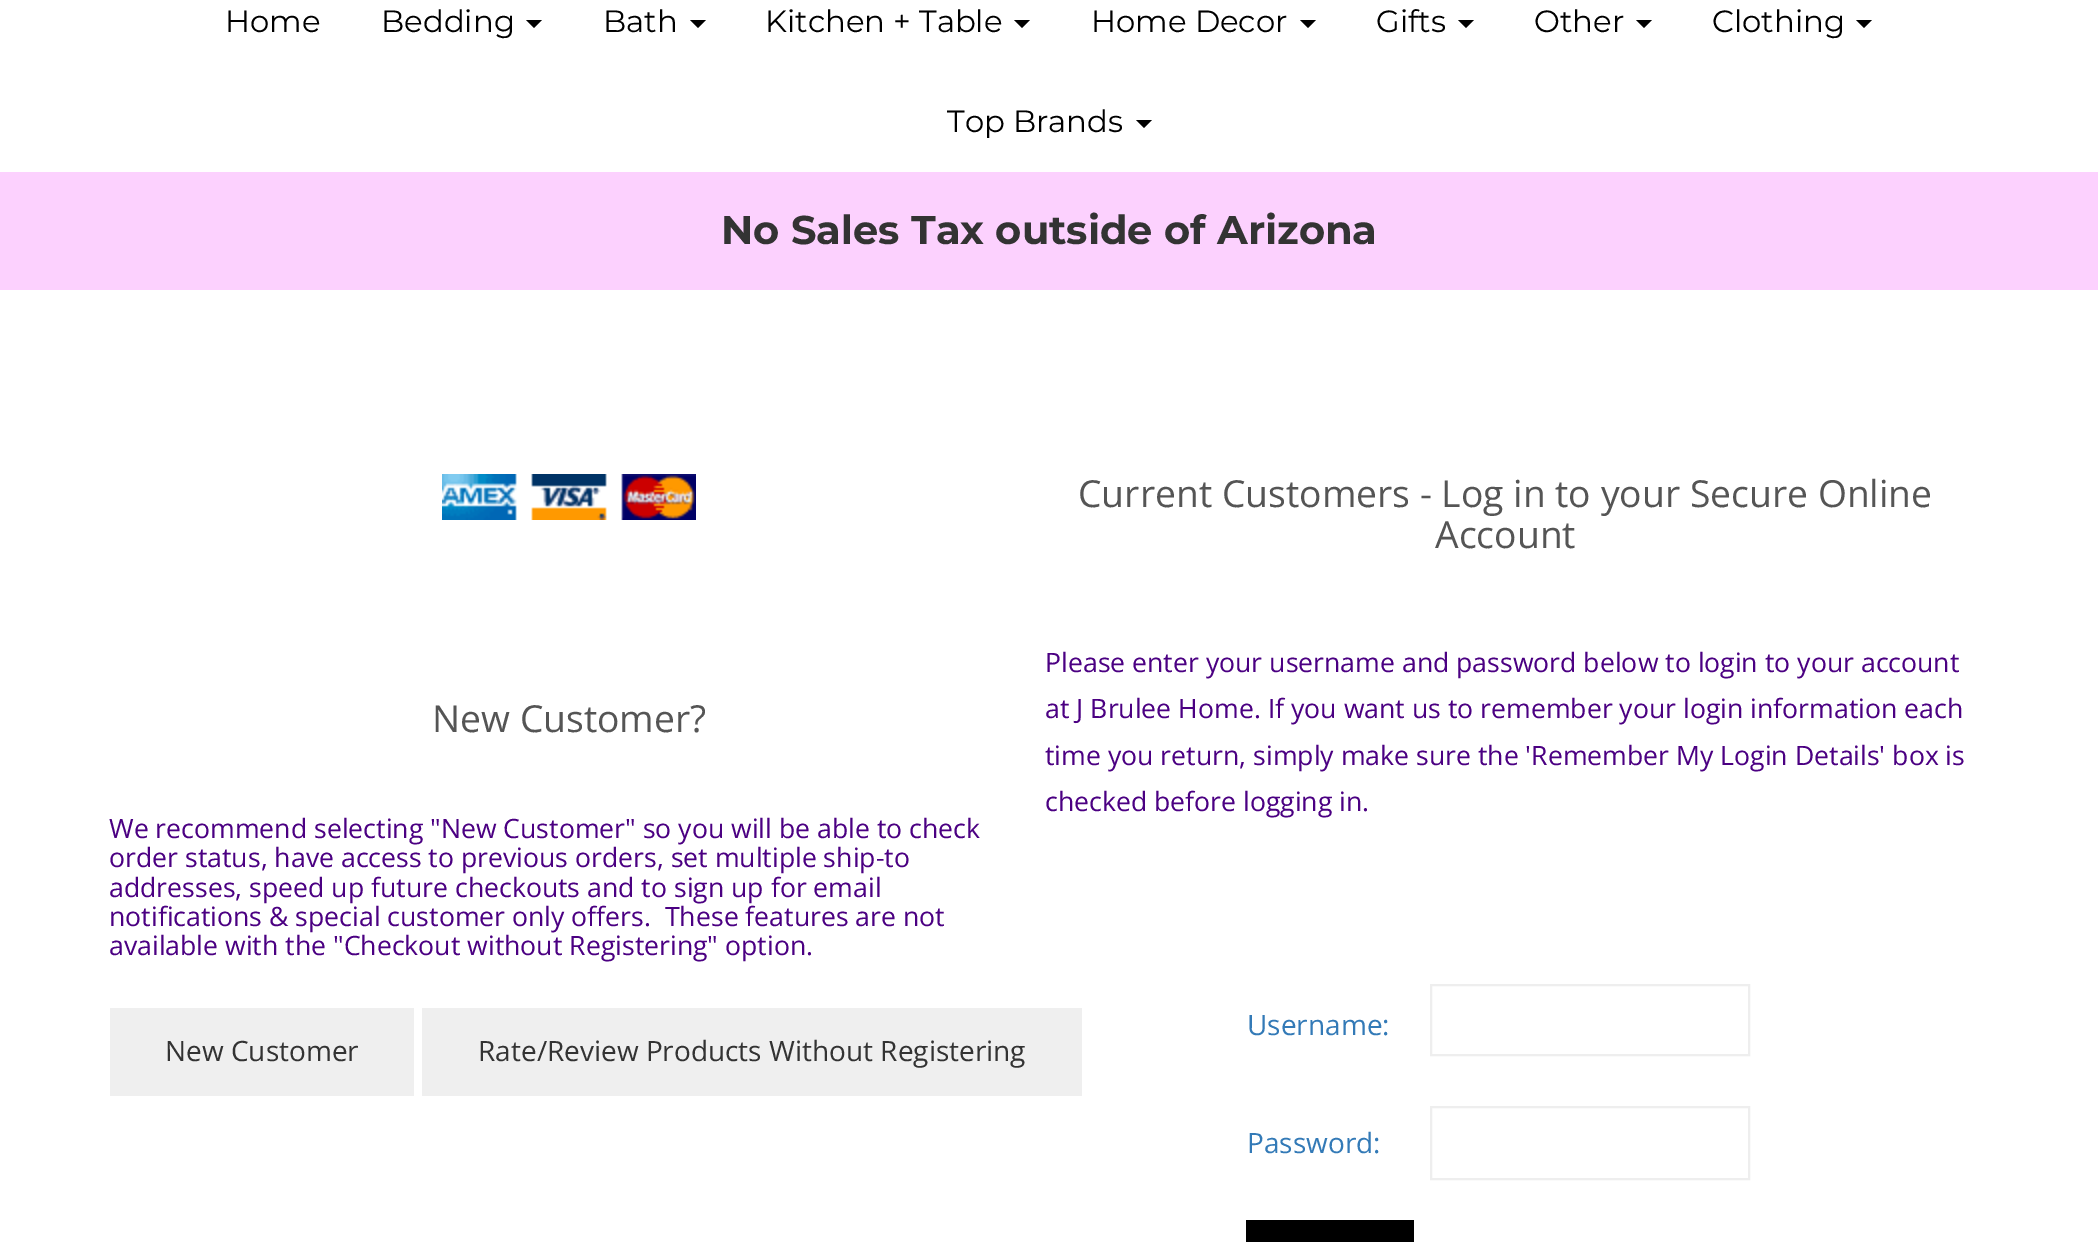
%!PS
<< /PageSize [2098 1242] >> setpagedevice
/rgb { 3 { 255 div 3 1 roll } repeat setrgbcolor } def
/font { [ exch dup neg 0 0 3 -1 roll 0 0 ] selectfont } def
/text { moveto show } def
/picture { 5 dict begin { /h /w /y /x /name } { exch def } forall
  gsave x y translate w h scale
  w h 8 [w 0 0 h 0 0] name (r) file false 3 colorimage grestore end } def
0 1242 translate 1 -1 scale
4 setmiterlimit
255 255 255 rgb
0 0 2098 1242 rectfill
0 0 0 rgb
526 20 moveto 16 0 rlineto -8 8 rlineto closepath fill
690 20 moveto 16 0 rlineto -8 8 rlineto closepath fill
1014 20 moveto 16 0 rlineto -8 8 rlineto closepath fill
1300 20 moveto 16 0 rlineto -8 8 rlineto closepath fill
1458 20 moveto 16 0 rlineto -8 8 rlineto closepath fill
1636 20 moveto 16 0 rlineto -8 8 rlineto closepath fill
1856 20 moveto 16 0 rlineto -8 8 rlineto closepath fill
1136 120 moveto 16 0 rlineto -8 8 rlineto closepath fill
252 209 254 rgb
0 172 2098 118 rectfill
(img_01.rgb) 442 474 254 46 picture
239 239 239 rgb
110 1008 304 88 rectfill
422 1008 660 88 rectfill
238 238 238 rgb
2 setlinewidth
1431 985 318 70 rectstroke
1431 1107 318 72 rectstroke
0 0 0 rgb
1246 1220 168 22 rectfill
/Montserrat-Regular 30.75 font
(Home) 225 32 text
(Bedding) 381 32 text
(Bath) 603 32 text
(Kitchen + Table) 765 32 text
(Home Decor) 1091 32 text
(Gifts) 1376 32 text
(Other) 1534 32 text
(Clothing) 1712 32 text
(Top Brands) 947 132 text
/Montserrat-Bold 40 font
51 51 51 rgb
(No Sales Tax outside of Arizona) 721 244 text
/OpenSans-Regular 37.3 font
85 85 85 rgb
(New Customer?) 432 732 text
/OpenSans-Regular 26.65 font
75 0 130 rgb
(We recommend selecting "New Customer" so you will be able to check) 109 838 text
(order status, have access to previous orders, set multiple ship-to) 109 867 text
(addresses, speed up future checkouts and to sign up for email) 109 897 text
(notifications & special customer only offers.  These features are not) 109 926 text
(available with the "Checkout without Registering" option.) 109 955 text
/OpenSans-Regular 28 font
51 51 51 rgb
(New Customer) 165 1061 text
(Rate/Review Products Without Registering) 478 1061 text
/OpenSans-Regular 37.3 font
85 85 85 rgb
(Current Customers - Log in to your Secure Online) 1078 507 text
(Account) 1435 548 text
/OpenSans-Regular 26.65 font
75 0 130 rgb
(Please enter your username and password below to login to your account) 1045 672 text
(at J Brulee Home. If you want us to remember your login information each) 1045 718 text
(time you return, simply make sure the 'Remember My Login Details' box is) 1045 765 text
(checked before logging in.) 1045 811 text
/OpenSans-Regular 28 font
51 122 183 rgb
(Username:) 1247 1035 text
(Password:) 1247 1153 text
showpage
